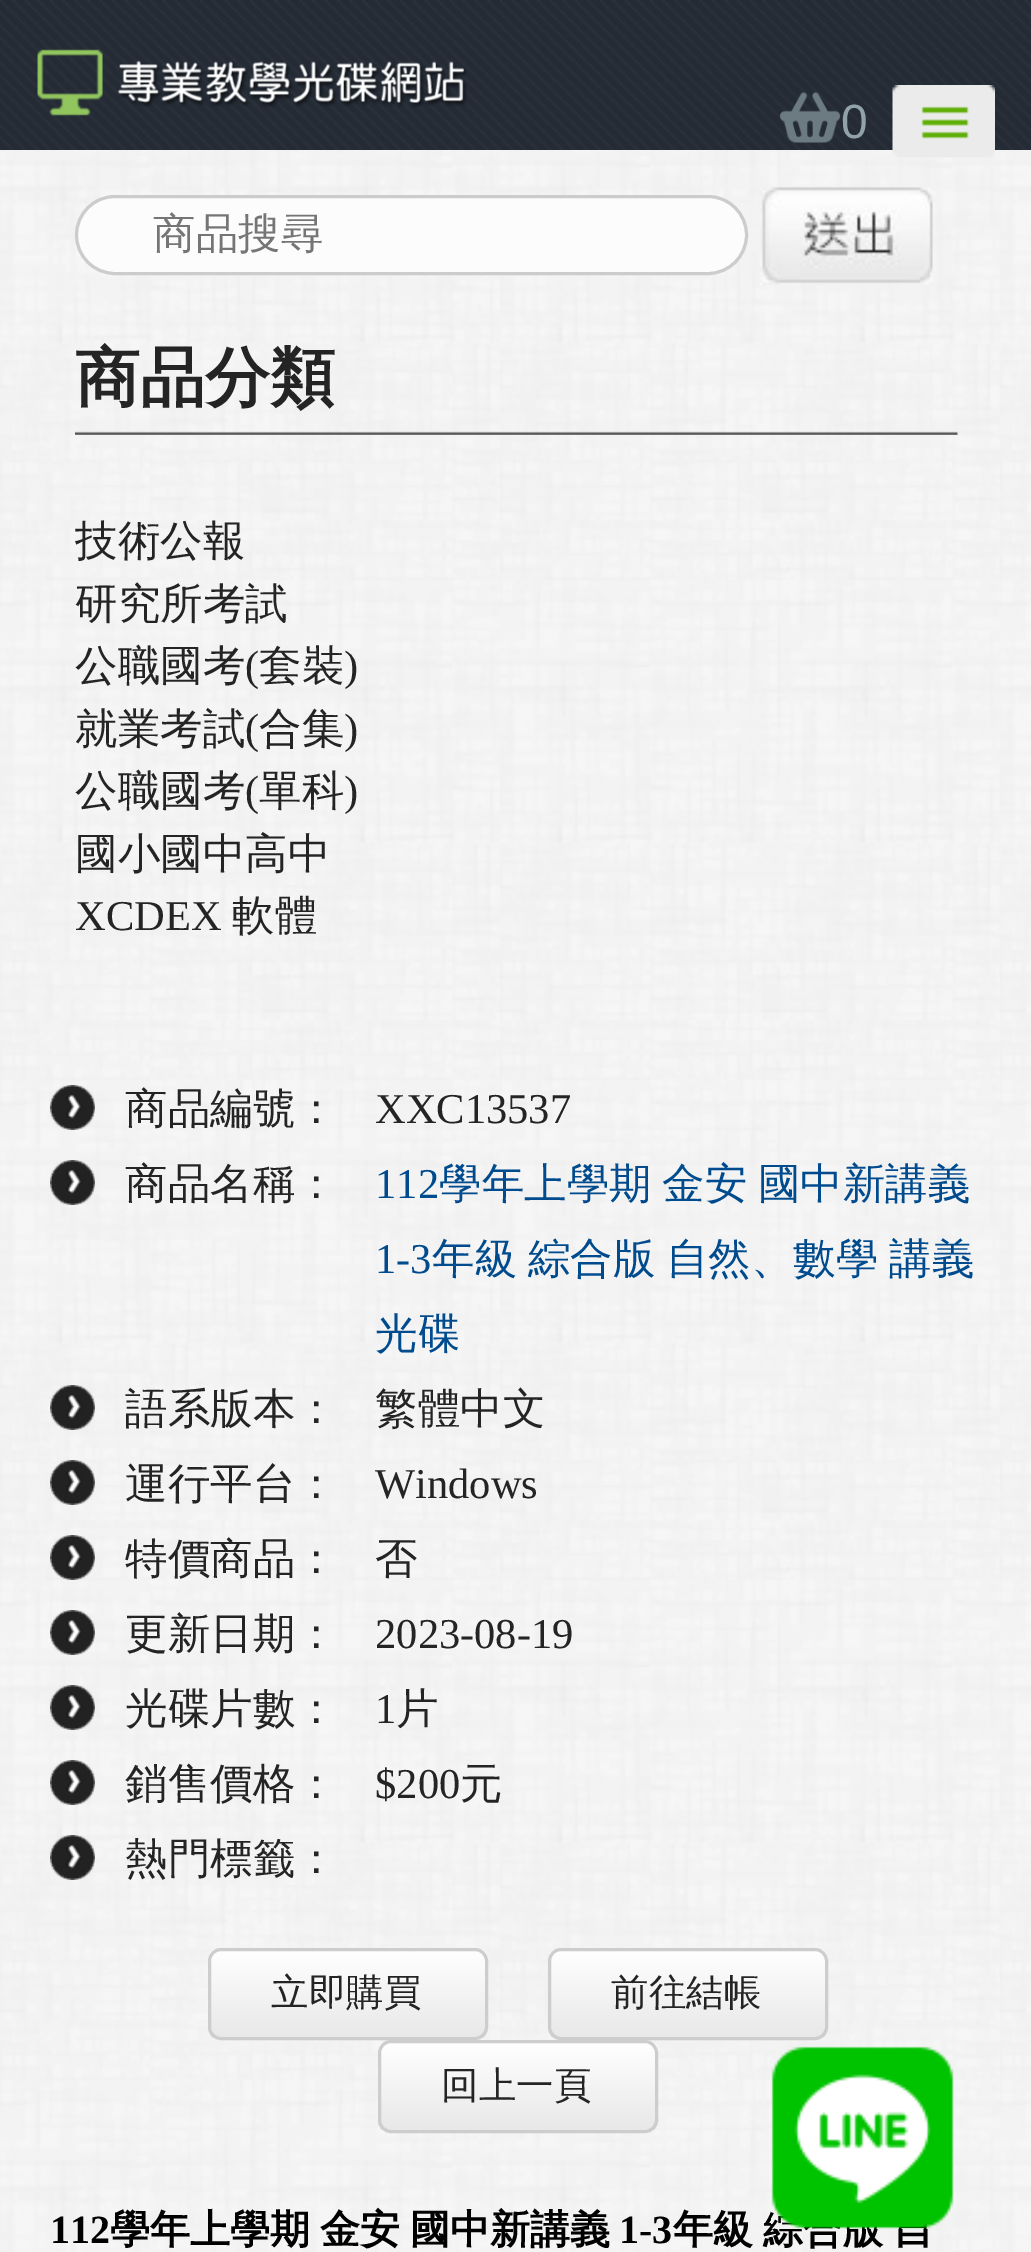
%!PS
<< /PageSize [1031 2252] >> setpagedevice
/rgb { 3 { 255 div 3 1 roll } repeat setrgbcolor } def
/font { [ exch dup neg 0 0 3 -1 roll 0 0 ] selectfont } def
/text { moveto show } def
/roundrect { 5 dict begin { /r /h /w /y /x } { exch def } forall
  x r add y moveto x w add y 2 copy h add r arct x w add y h add x 1 index r arct
  x y h add x y r arct x y 2 copy exch w add exch r arct closepath end } def
/picture { 5 dict begin { /h /w /y /x /name } { exch def } forall
  gsave x y translate w h scale
  w h 8 [w 0 0 h 0 0] name (r) file false 3 colorimage grestore end } def
0 2252 translate 1 -1 scale
4 setmiterlimit
255 255 255 rgb
0 0 1031 2252 rectfill
(img_01.rgb) 0 0 1031 150 picture
(img_02.rgb) 37 49 430 67 picture
(img_03.rgb) 780 92 60 51 picture
(img_05.rgb) 0 150 1031 2102 picture
(img_04.rgb) 892 85 103 73 picture
252 252 252 rgb
76.5 196.5 670 77 38.5 roundrect gsave fill grestore
204 204 204 rgb
3 setlinewidth
stroke
(img_06.rgb) 760 187 173 98 picture
(img_07.rgb) 75 431 883 4 picture
(img_08.rgb) 50 1085 45 45 picture
(img_09.rgb) 50 1160 45 45 picture
(img_10.rgb) 50 1385 45 45 picture
(img_11.rgb) 50 1460 45 45 picture
(img_12.rgb) 50 1535 45 45 picture
(img_13.rgb) 50 1610 45 45 picture
(img_14.rgb) 50 1685 45 45 picture
(img_15.rgb) 50 1760 45 45 picture
(img_16.rgb) 50 1835 45 45 picture
gsave
208 1948 280 92 13 roundrect clip newpath
gsave 208 1950 moveto 280 0 rlineto 0 88 rlineto -280 0 rlineto closepath clip newpath
<< /ShadingType 2 /ColorSpace /DeviceRGB /Coords [348 1950 348 2038] /Extend [true true] /Function << /FunctionType 2 /Domain [0 1] /C0 [1 1 1] /C1 [0.91 0.91 0.91] /N 1 >> >> shfill grestore
grestore
205 205 205 rgb
209.5 1949.5 277 89 11.5 roundrect stroke
gsave
548 1948 280 92 13 roundrect clip newpath
gsave 548 1950 moveto 280 0 rlineto 0 88 rlineto -280 0 rlineto closepath clip newpath
<< /ShadingType 2 /ColorSpace /DeviceRGB /Coords [688 1950 688 2038] /Extend [true true] /Function << /FunctionType 2 /Domain [0 1] /C0 [1 1 1] /C1 [0.91 0.91 0.91] /N 1 >> >> shfill grestore
grestore
549.5 1949.5 277 89 11.5 roundrect stroke
gsave
378 2040 280 93 13 roundrect clip newpath
gsave 378 2043 moveto 280 0 rlineto 0 87 rlineto -280 0 rlineto closepath clip newpath
<< /ShadingType 2 /ColorSpace /DeviceRGB /Coords [518 2043 518 2130] /Extend [true true] /Function << /FunctionType 2 /Domain [0 1] /C0 [1 1 1] /C1 [0.91 0.91 0.91] /N 1 >> >> shfill grestore
grestore
379.5 2041.5 277 90 11.5 roundrect stroke
/LiberationSans-Regular 48 font
145 162 170 rgb
(0) 841 138 text
/WenQuanYiZenHei-Medium 42.5 font
117 117 117 rgb
(商品搜尋) 153 248 text
/WenQuanYiZenHei-Bold 65 font
36 36 36 rgb
(商品分類) 75 400 text
/WenQuanYiZenHei-Medium 42.5 font
(技術公報) 75 555 text
(研究所考試) 75 618 text
(公職國考) 75 680 text
/LiberationSerif-Regular 42.5 font
(\() 245 680 text
/WenQuanYiZenHei-Medium 42.5 font
(套裝) 259 680 text
/LiberationSerif-Regular 42.5 font
(\)) 344 680 text
/WenQuanYiZenHei-Medium 42.5 font
(就業考試) 75 743 text
/LiberationSerif-Regular 42.5 font
(\() 245 743 text
/WenQuanYiZenHei-Medium 42.5 font
(合集) 259 743 text
/LiberationSerif-Regular 42.5 font
(\)) 344 743 text
/WenQuanYiZenHei-Medium 42.5 font
(公職國考) 75 805 text
/LiberationSerif-Regular 42.5 font
(\() 245 805 text
/WenQuanYiZenHei-Medium 42.5 font
(單科) 259 805 text
/LiberationSerif-Regular 42.5 font
(\)) 344 805 text
/WenQuanYiZenHei-Medium 42.5 font
(國小國中高中) 75 868 text
/LiberationSerif-Regular 42.5 font
(XCDEX) 75 930 text
/WenQuanYiZenHei-Medium 42.5 font
(軟體) 232 930 text
(商品編號：) 125 1123 text
/LiberationSerif-Regular 42.5 font
(XXC13537) 375 1123 text
/WenQuanYiZenHei-Medium 42.5 font
(商品名稱：) 125 1198 text
/LiberationSerif-Regular 42.5 font
0 74 142 rgb
(112) 375 1198 text
/WenQuanYiZenHei-Medium 42.5 font
439 1198 moveto -2 0 32 (學年上學期 金安 國中新講義) widthshow
/LiberationSerif-Regular 42.5 font
(1-3) 375 1273 text
/WenQuanYiZenHei-Medium 42.5 font
432 1273 moveto -2 0 32 (年級 綜合版 自然、數學 講義) widthshow
(光碟) 375 1348 text
36 36 36 rgb
(語系版本：) 125 1423 text
(繁體中文) 375 1423 text
(運行平台：) 125 1498 text
/LiberationSerif-Regular 42.5 font
(Windows) 375 1498 text
/WenQuanYiZenHei-Medium 42.5 font
(特價商品：) 125 1573 text
(否) 375 1573 text
(更新日期：) 125 1648 text
/LiberationSerif-Regular 42.5 font
(2023-08-19) 375 1648 text
/WenQuanYiZenHei-Medium 42.5 font
(光碟片數：) 125 1723 text
/LiberationSerif-Regular 42.5 font
(1) 375 1723 text
/WenQuanYiZenHei-Medium 42.5 font
(片) 396 1723 text
(銷售價格：) 125 1798 text
/LiberationSerif-Regular 42.5 font
($200) 375 1798 text
/WenQuanYiZenHei-Medium 42.5 font
(元) 460 1798 text
(熱門標籤：) 125 1873 text
/WenQuanYiZenHei-Medium 37.5 font
(立即購買) 271 2005 text
(前往結帳) 611 2005 text
(回上一頁) 441 2098 text
/LiberationSerif-Bold 40 font
0 0 0 rgb
(112) 50 2243 text
/WenQuanYiZenHei-Bold 40 font
110 2243 moveto -2 0 32 (學年上學期 金安 國中新講義) widthshow
/LiberationSerif-Bold 40 font
(1-3) 619 2243 text
/WenQuanYiZenHei-Bold 40 font
673 2243 moveto -2 0 32 (年級 綜合版 自) widthshow
(img_17.rgb) 771 2046 183 183 picture
showpage
